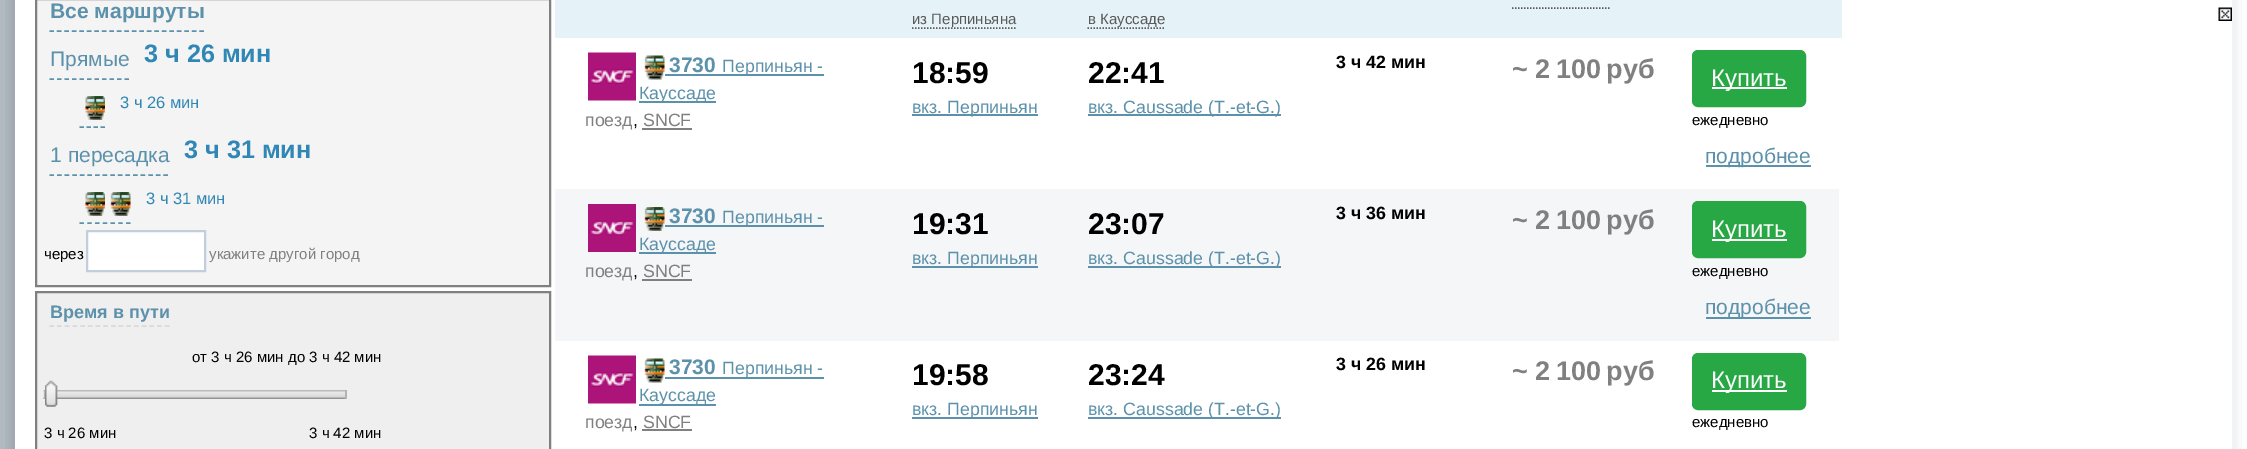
%!PS
<< /PageSize [2247 449] >> setpagedevice
/rgb { 3 { 255 div 3 1 roll } repeat setrgbcolor } def
/font { [ exch dup neg 0 0 3 -1 roll 0 0 ] selectfont } def
/text { moveto show } def
/roundrect { 5 dict begin { /r /h /w /y /x } { exch def } forall
  x r add y moveto x w add y 2 copy h add r arct x w add y h add x 1 index r arct
  x y h add x y r arct x y 2 copy exch w add exch r arct closepath end } def
/picture { 5 dict begin { /h /w /y /x /name } { exch def } forall
  gsave x y translate w h scale
  w h 8 [w 0 0 h 0 0] name (r) file false 3 colorimage grestore end } def
0 449 translate 1 -1 scale
4 setmiterlimit
177 186 193 rgb
0 0 2247 449 rectfill
(img_01.rgb) 5 0 10 449 picture
(img_02.rgb) 2232 0 15 449 picture
255 255 255 rgb
15 0 2217 449 rectfill
244 244 244 rgb
36 -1 moveto 514 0 rlineto 0 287 rlineto -514 0 rlineto closepath gsave fill grestore
128 128 128 rgb
2 setlinewidth
stroke
92 145 171 rgb
1.5 setlinewidth
[4.5 3] 0 setdash
49.5 31 moveto 154.5 0 rlineto stroke
49.5 79 moveto 79.5 0 rlineto stroke
[4.5 2.5] 0 setdash
79.5 127 moveto 25.5 0 rlineto stroke
(img_03.rgb) 85 96 20 24 picture
[4.5 3.1] 0 setdash
49.5 175 moveto 118.5 0 rlineto stroke
[4.5 3.25] 0 setdash
79.5 223 moveto 51 0 rlineto stroke
(img_03.rgb) 85 192 20 24 picture
(img_04.rgb) 110 192 21 24 picture
255 255 255 rgb
87 231 moveto 118 0 rlineto 0 40 rlineto -118 0 rlineto closepath gsave fill grestore
195 206 221 rgb
2 setlinewidth
[] 0 setdash
stroke
239 239 239 rgb
36 292 moveto 514 0 rlineto 0 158 rlineto -514 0 rlineto closepath gsave fill grestore
128 128 128 rgb
stroke
217 217 217 rgb
1.5 setlinewidth
[4.5 3.19] 0 setdash
49.5 326 moveto 120 0 rlineto stroke
(img_05.rgb) 43 390 302 9 picture
179 179 179 rgb
345 390 2 9 rectfill
44 390 1 9 rectfill
(img_06.rgb) 45 380 13 27 picture
(img_07.rgb) 45 380 13 27 picture
229 242 247 rgb
555 0 1287 38 rectfill
90 90 90 rgb
[1.5 1.5] 0 setdash
1512 8 moveto 97.5 0 rlineto stroke
912 28 moveto 105 0 rlineto stroke
1087.5 28 moveto 78 0 rlineto stroke
(img_08.rgb) 588 52 48 49 picture
(img_09.rgb) 644 55 21 25 picture
92 145 171 rgb
665 74 159 2 rectfill
639 101 77 2 rectfill
128 128 128 rgb
642 128 50 2 rectfill
92 145 171 rgb
912 114 126 2 rectfill
1088 114 193 2 rectfill
40 167 69 rgb
1693 51 112 55 5 roundrect gsave fill grestore
2 setlinewidth
[] 0 setdash
stroke
255 255 255 rgb
1712 87 75 2 rectfill
92 145 171 rgb
1706 165 105 2 rectfill
245 246 247 rgb
555 189 1284 152 rectfill
(img_10.rgb) 588 204 48 48 picture
(img_11.rgb) 644 207 21 24 picture
92 145 171 rgb
665 225 159 2 rectfill
639 252 77 2 rectfill
128 128 128 rgb
642 279 50 2 rectfill
92 145 171 rgb
912 266 126 2 rectfill
1088 266 193 2 rectfill
40 167 69 rgb
1693 202 112 55 5 roundrect gsave fill grestore
stroke
255 255 255 rgb
1712 239 75 2 rectfill
92 145 171 rgb
1706 317 105 2 rectfill
(img_08.rgb) 588 355 48 49 picture
(img_09.rgb) 644 358 21 25 picture
665 377 159 2 rectfill
639 404 77 2 rectfill
128 128 128 rgb
642 429 50 2 rectfill
92 145 171 rgb
912 417 126 2 rectfill
1088 417 193 2 rectfill
40 167 69 rgb
1693 354 112 55 5 roundrect gsave fill grestore
stroke
255 255 255 rgb
1712 390 75 2 rectfill
(img_12.rgb) 2218 7 14 14 picture
/LiberationSans-Bold 21 font
92 145 171 rgb
(Все маршруты) 50 18 text
/LiberationSans-Regular 21 font
(Прямые) 50 66 text
/LiberationSans-Bold 25.25 font
48 135 181 rgb
(3 ч 26 мин) 144 62 text
/LiberationSans-Regular 16.5 font
(3 ч 26 мин) 120 108 text
/LiberationSans-Regular 21 font
92 145 171 rgb
(1 пересадка) 50 162 text
/LiberationSans-Bold 25.25 font
48 135 181 rgb
(3 ч 31 мин) 184 158 text
/LiberationSans-Regular 16.5 font
(3 ч 31 мин) 146 204 text
/LiberationSans-Regular 15 font
0 0 0 rgb
(через) 44 259 text
128 128 128 rgb
(укажите другой город) 209 259 text
/LiberationSans-Bold 18 font
92 145 171 rgb
(Время в пути) 50 318 text
/LiberationSans-Regular 15 font
0 0 0 rgb
(от 3 ч 26 мин до 3 ч 42 мин) 192 362 text
(3 ч 26 мин) 44 438 text
(3 ч 42 мин) 309 438 text
90 90 90 rgb
(из Перпиньяна) 912 24 text
(в Кауссаде) 1088 24 text
/LiberationSans-Bold 21 font
92 145 171 rgb
(3730) 669 72 text
/LiberationSans-Regular 17.75 font
(Перпиньян -) 722 72 text
(Кауссаде) 639 99 text
128 128 128 rgb
(поезд) 585 126 text
0 0 0 rgb
(,) 633 126 text
128 128 128 rgb
(SNCF) 643 126 text
/LiberationSans-Bold 30 font
0 0 0 rgb
(18:59) 912 83 text
/LiberationSans-Regular 17.75 font
92 145 171 rgb
(вкз. Перпиньян) 912 113 text
/LiberationSans-Bold 30 font
0 0 0 rgb
(22:41) 1088 83 text
/LiberationSans-Regular 17.75 font
92 145 171 rgb
(вкз. Caussade \(T.-et-G.\)) 1088 113 text
/LiberationSans-Bold 17.75 font
0 0 0 rgb
(3 ч 42 мин) 1336 68 text
/LiberationSans-Bold 27 font
128 128 128 rgb
(~ 2 100 руб) 1512 78 text
/LiberationSans-Regular 24 font
255 255 255 rgb
(Купить) 1711 86 text
/LiberationSans-Regular 15 font
0 0 0 rgb
(ежедневно) 1692 125 text
/LiberationSans-Regular 21 font
92 145 171 rgb
(подробнее) 1705 163 text
/LiberationSans-Bold 21 font
(3730) 669 223 text
/LiberationSans-Regular 17.75 font
(Перпиньян -) 722 223 text
(Кауссаде) 639 250 text
128 128 128 rgb
(поезд) 585 277 text
0 0 0 rgb
(,) 633 277 text
128 128 128 rgb
(SNCF) 643 277 text
/LiberationSans-Bold 30 font
0 0 0 rgb
(19:31) 912 234 text
/LiberationSans-Regular 17.75 font
92 145 171 rgb
(вкз. Перпиньян) 912 264 text
/LiberationSans-Bold 30 font
0 0 0 rgb
(23:07) 1088 234 text
/LiberationSans-Regular 17.75 font
92 145 171 rgb
(вкз. Caussade \(T.-et-G.\)) 1088 264 text
/LiberationSans-Bold 17.75 font
0 0 0 rgb
(3 ч 36 мин) 1336 219 text
/LiberationSans-Bold 27 font
128 128 128 rgb
(~ 2 100 руб) 1512 229 text
/LiberationSans-Regular 24 font
255 255 255 rgb
(Купить) 1711 237 text
/LiberationSans-Regular 15 font
0 0 0 rgb
(ежедневно) 1692 276 text
/LiberationSans-Regular 21 font
92 145 171 rgb
(подробнее) 1705 314 text
/LiberationSans-Bold 21 font
(3730) 669 374 text
/LiberationSans-Regular 17.75 font
(Перпиньян -) 722 374 text
(Кауссаде) 639 401 text
128 128 128 rgb
(поезд) 585 428 text
0 0 0 rgb
(,) 633 428 text
128 128 128 rgb
(SNCF) 643 428 text
/LiberationSans-Bold 30 font
0 0 0 rgb
(19:58) 912 385 text
/LiberationSans-Regular 17.75 font
92 145 171 rgb
(вкз. Перпиньян) 912 415 text
/LiberationSans-Bold 30 font
0 0 0 rgb
(23:24) 1088 385 text
/LiberationSans-Regular 17.75 font
92 145 171 rgb
(вкз. Caussade \(T.-et-G.\)) 1088 415 text
/LiberationSans-Bold 17.75 font
0 0 0 rgb
(3 ч 26 мин) 1336 370 text
/LiberationSans-Bold 27 font
128 128 128 rgb
(~ 2 100 руб) 1512 380 text
/LiberationSans-Regular 24 font
255 255 255 rgb
(Купить) 1711 388 text
/LiberationSans-Regular 15 font
0 0 0 rgb
(ежедневно) 1692 427 text
showpage
